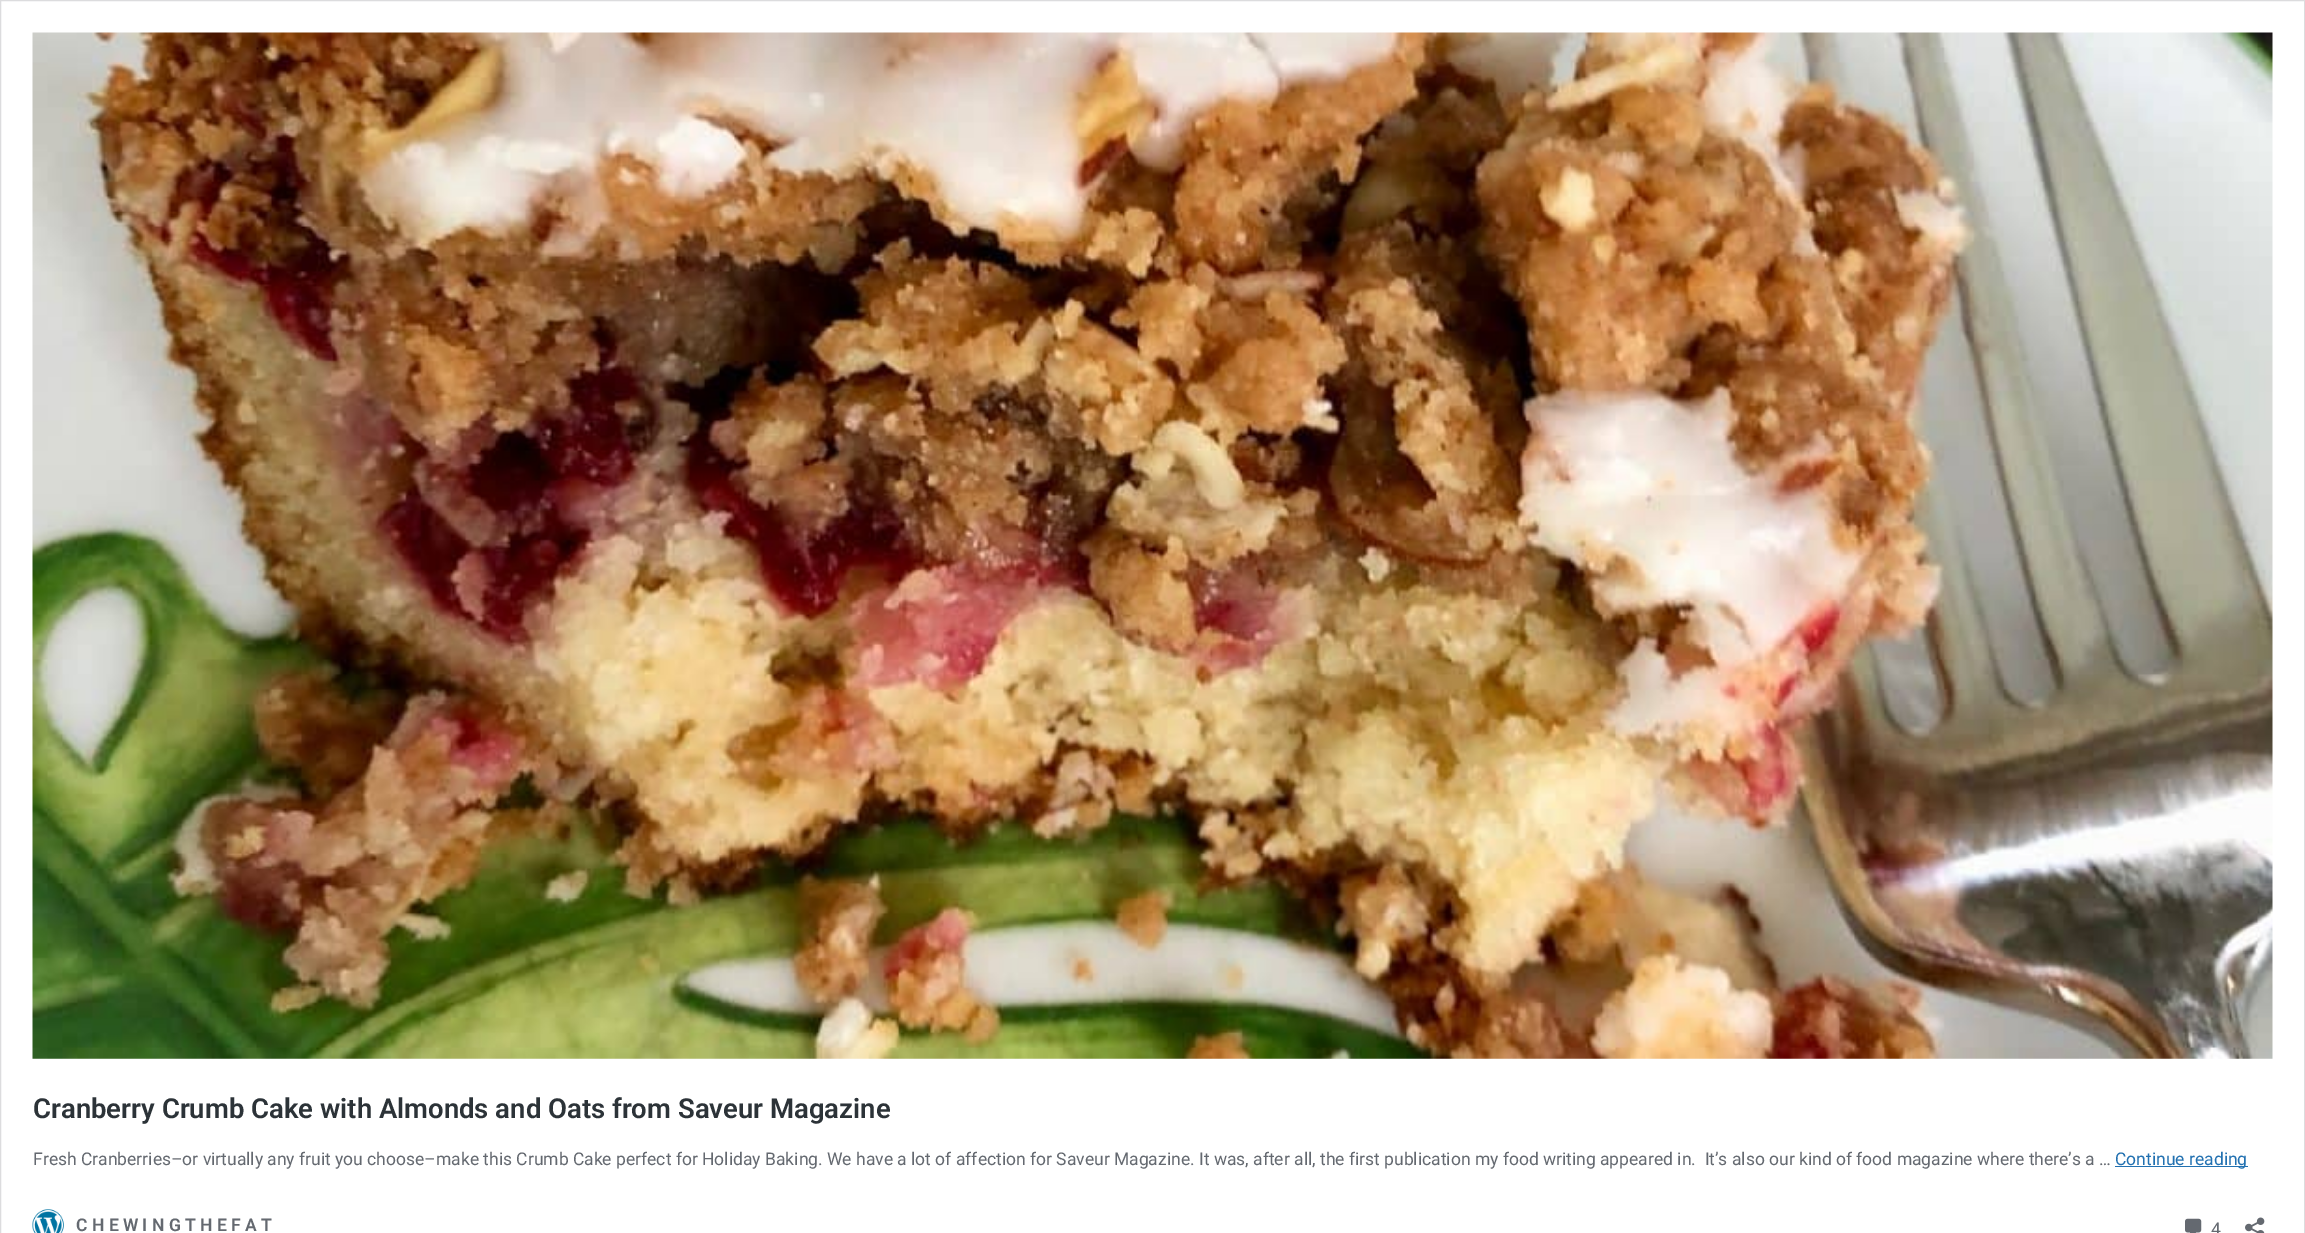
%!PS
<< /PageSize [2305 1233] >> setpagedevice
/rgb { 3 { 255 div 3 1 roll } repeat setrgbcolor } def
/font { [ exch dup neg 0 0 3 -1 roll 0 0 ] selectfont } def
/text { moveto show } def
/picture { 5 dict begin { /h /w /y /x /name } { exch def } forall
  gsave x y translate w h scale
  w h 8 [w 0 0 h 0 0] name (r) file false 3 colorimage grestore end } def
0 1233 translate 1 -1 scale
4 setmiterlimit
255 255 255 rgb
0 0 2305 1233 rectfill
220 220 222 rgb
0.5 0.5 2304 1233 rectstroke
(img_01.rgb) 32 32 2241 1027 picture
34 113 177 rgb
2115 1166 133 1 rectfill
(img_02.rgb) 32 1209 32 24 picture
(img_03.rgb) 2185 1218 17 15 picture
(img_04.rgb) 2245 1217 20 16 picture
/Roboto-SemiBold 27.5 font
44 51 56 rgb
(Cranberry Crumb Cake with Almonds and Oats from Saveur Magazine) 33 1118 text
/Roboto-Regular 17.5 font
100 105 112 rgb
(Fresh Cranberries–or virtually any fruit you choose–make this Crumb Cake perfect for Holiday Baking. We have a lot of affection for Saveur Magazine. It was, after all, the first publication my food writing appeared in.  It’s also our kind of food magazine where there’s a …) 33 1165 text
34 113 177 rgb
(Continue reading) 2115 1165 text
/Roboto-SemiBold 17.5 font
100 105 112 rgb
(C H E W I N G T H E F A T) 76 1231 text
/Roboto-Regular 17.5 font
(4) 2211 1235 text
showpage
